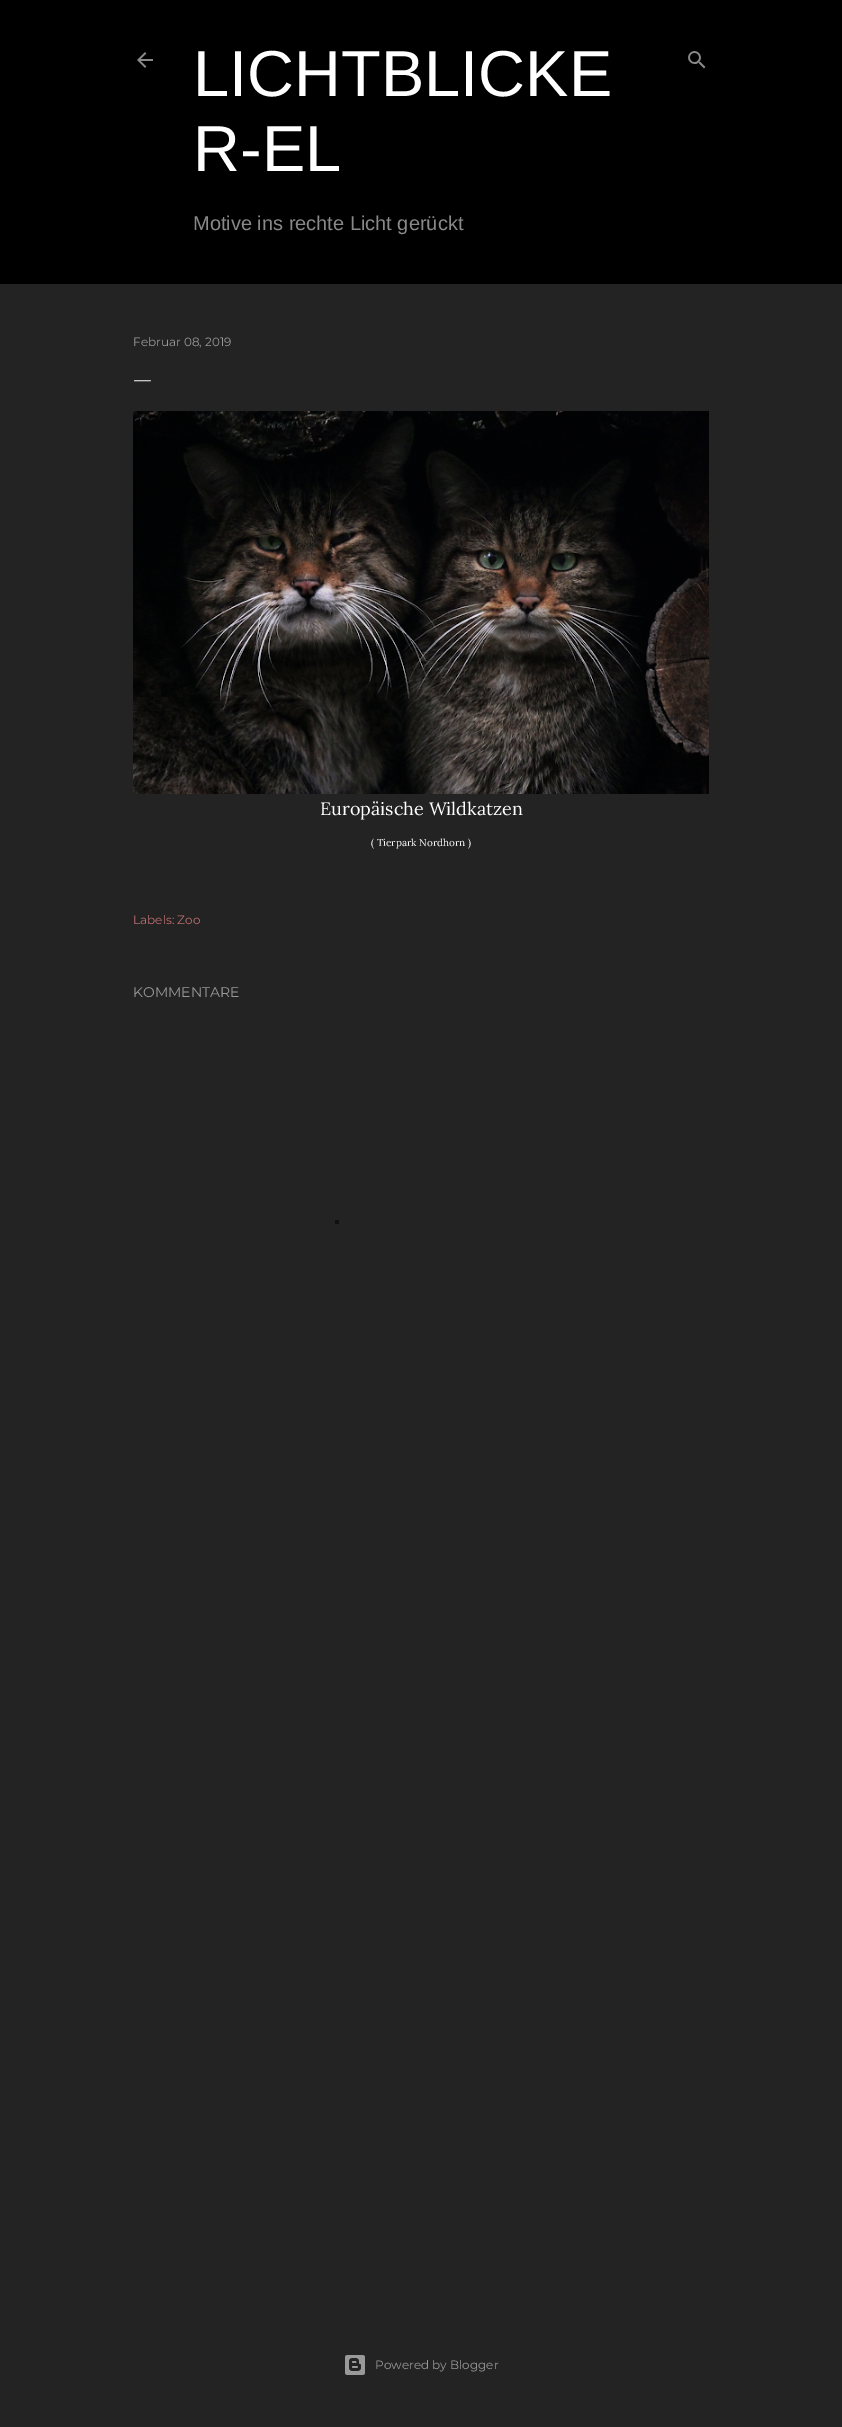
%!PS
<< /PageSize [842 2427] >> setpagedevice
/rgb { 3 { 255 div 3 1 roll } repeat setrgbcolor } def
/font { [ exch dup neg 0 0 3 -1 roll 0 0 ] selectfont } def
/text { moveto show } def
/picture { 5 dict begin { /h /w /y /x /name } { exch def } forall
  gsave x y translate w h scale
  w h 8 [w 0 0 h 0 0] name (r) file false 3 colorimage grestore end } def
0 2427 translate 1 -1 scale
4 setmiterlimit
35 35 35 rgb
0 0 842 2427 rectfill
0 0 0 rgb
0 0 842 284 rectfill
(img_01.rgb) 137 52 16 16 picture
(img_02.rgb) 688 51 18 18 picture
(img_03.rgb) 133 411 576 383 picture
(img_04.rgb) 345 2355 20 20 picture
16 16 16 rgb
335 1220 4 4 rectfill
/LiberationSans-Regular 65 font
255 255 255 rgb
(LICHTBLICKE) 193 96 text
(R-EL) 193 171 text
/LiberationSans-Regular 20 font
137 137 137 rgb
(Motive ins rechte Licht gerückt) 193 230 text
/Montserrat-Regular 12 font
153 153 153 rgb
(Februar 08, 2019) 133 346 text
/EBGaramond-Regular 20 font
255 255 255 rgb
(—) 133 385 text
/Lora-Regular 18 font
(Europäische Wildkatzen) 320 815 text
/Lora-Regular 10 font
(\( Tierpark Nordhorn \)) 371 846 text
/Montserrat-Regular 12 font
186 110 110 rgb
(Labels: Zoo) 133 924 text
/Montserrat-Regular 14 font
153 153 153 rgb
(KOMMENTARE) 133 997 text
/Montserrat-Regular 12 font
(Powered by Blogger) 375 2369 text
showpage
